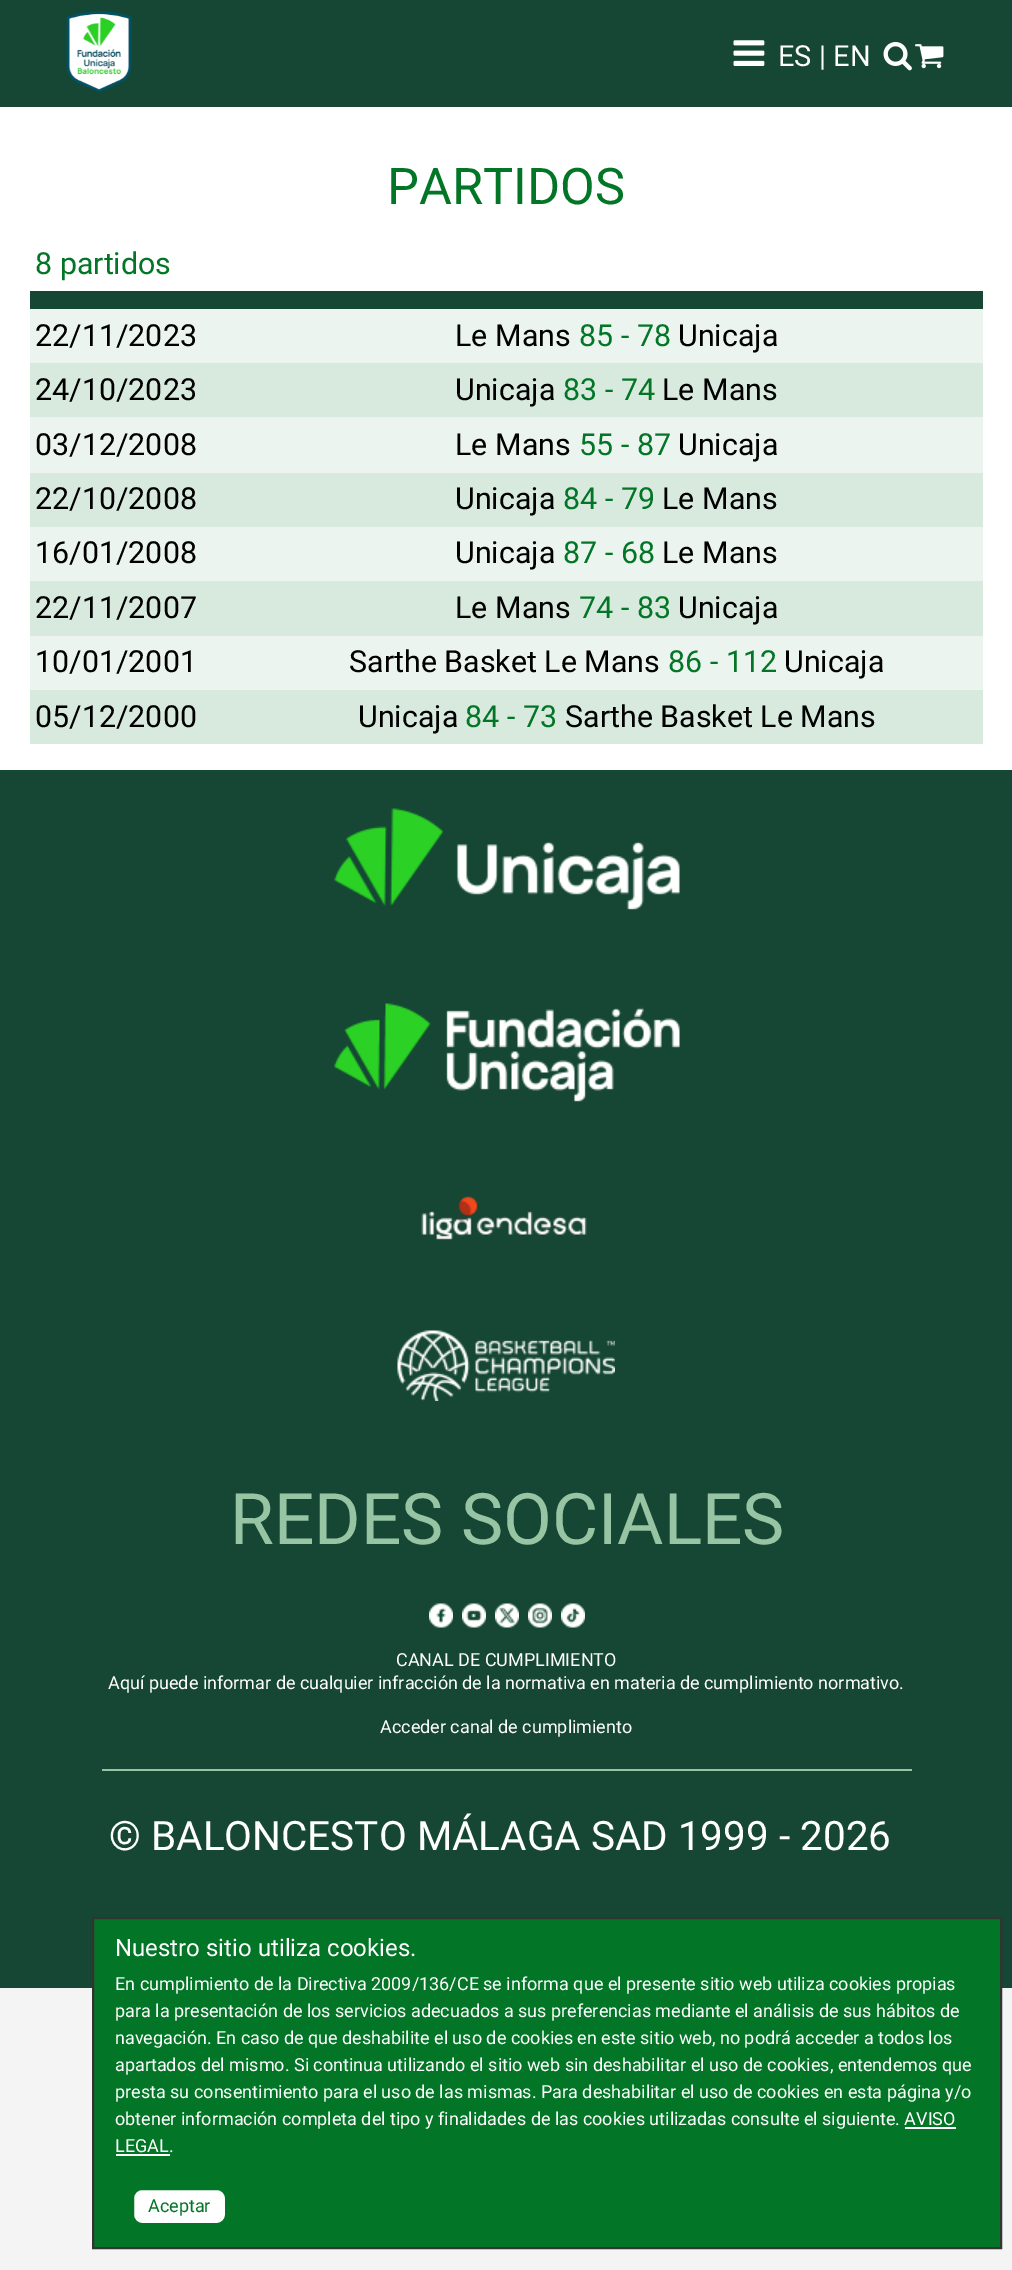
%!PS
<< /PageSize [1012 2270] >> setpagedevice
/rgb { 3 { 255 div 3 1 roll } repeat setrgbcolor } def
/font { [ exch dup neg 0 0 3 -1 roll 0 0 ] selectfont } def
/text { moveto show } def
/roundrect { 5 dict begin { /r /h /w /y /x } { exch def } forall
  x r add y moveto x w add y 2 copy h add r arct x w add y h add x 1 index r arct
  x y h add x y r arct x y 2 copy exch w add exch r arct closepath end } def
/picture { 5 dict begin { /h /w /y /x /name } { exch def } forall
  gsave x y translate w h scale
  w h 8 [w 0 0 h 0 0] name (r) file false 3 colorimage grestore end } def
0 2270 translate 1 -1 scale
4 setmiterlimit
244 244 244 rgb
0 0 1012 2270 rectfill
255 255 255 rgb
0 107 1012 663 rectfill
21 71 52 rgb
0 0 1012 107 rectfill
(img_01.rgb) 66 11 66 82 picture
(img_02.rgb) 733 40 32 26 picture
(img_03.rgb) 883 42 29 29 picture
(img_04.rgb) 915 44 29 25 picture
30 291 953 18 rectfill
235 244 238 rgb
30 309 953 54 rectfill
216 233 222 rgb
30 363 953 54 rectfill
235 244 238 rgb
30 417 953 56 rectfill
216 233 222 rgb
30 473 953 54 rectfill
235 244 238 rgb
30 527 953 54 rectfill
216 233 222 rgb
30 581 953 55 rectfill
235 244 238 rgb
30 636 953 54 rectfill
216 233 222 rgb
30 690 953 54 rectfill
21 71 52 rgb
0 770 1012 1218 rectfill
(img_05.rgb) 334 808 346 102 picture
(img_06.rgb) 334 1003 346 99 picture
(img_07.rgb) 421 1196 166 44 picture
(img_08.rgb) 397 1330 218 71 picture
(img_09.rgb) 429 1603 24 25 picture
(img_10.rgb) 462 1603 24 25 picture
(img_11.rgb) 495 1603 24 25 picture
(img_12.rgb) 528 1603 24 25 picture
(img_13.rgb) 561 1603 24 25 picture
151 197 163 rgb
102 1769 810 2 rectfill
2 118 38 rgb
93 1918 moveto 908 0 rlineto 0 330 rlineto -908 0 rlineto closepath gsave fill grestore
51 51 51 rgb
2 setlinewidth
stroke
255 255 255 rgb
905 2127 51 2 rectfill
116 2154 54 2 rectfill
132.5 2188.5 94 36 9.5 roundrect gsave fill grestore
2 118 38 rgb
3 setlinewidth
stroke
/Roboto-Regular 29 font
255 255 255 rgb
(ES | EN) 778 66 text
/Roboto-Regular 50.5 font
2 118 38 rgb
(PARTIDOS) 387 204 text
/Roboto-Regular 30.4 font
(8 partidos) 35 274 text
0 0 0 rgb
(22/11/2023) 35 346 text
(Le Mans) 455 346 text
2 118 38 rgb
(85 - 78) 579 346 text
0 0 0 rgb
(Unicaja) 678 346 text
(24/10/2023) 35 400 text
(Unicaja) 455 400 text
2 118 38 rgb
(83 - 74) 563 400 text
0 0 0 rgb
(Le Mans) 662 400 text
(03/12/2008) 35 455 text
(Le Mans) 455 455 text
2 118 38 rgb
(55 - 87) 579 455 text
0 0 0 rgb
(Unicaja) 678 455 text
(22/10/2008) 35 509 text
(Unicaja) 455 509 text
2 118 38 rgb
(84 - 79) 563 509 text
0 0 0 rgb
(Le Mans) 662 509 text
(16/01/2008) 35 563 text
(Unicaja) 455 563 text
2 118 38 rgb
(87 - 68) 563 563 text
0 0 0 rgb
(Le Mans) 662 563 text
(22/11/2007) 35 618 text
(Le Mans) 455 618 text
2 118 38 rgb
(74 - 83) 579 618 text
0 0 0 rgb
(Unicaja) 678 618 text
(10/01/2001) 35 672 text
(Sarthe Basket Le Mans) 349 672 text
2 118 38 rgb
(86 - 112) 668 672 text
0 0 0 rgb
(Unicaja) 784 672 text
(05/12/2000) 35 727 text
(Unicaja) 358 727 text
2 118 38 rgb
(84 - 73) 465 727 text
0 0 0 rgb
(Sarthe Basket Le Mans) 565 727 text
/Roboto-Regular 71 font
151 197 163 rgb
(REDES SOCIALES) 230 1544 text
/Roboto-Regular 18 font
255 255 255 rgb
(CANAL DE CUMPLIMIENTO) 396 1666 text
(Aquí puede informar de cualquier infracción de la normativa en materia de cumplimiento normativo.) 108 1689 text
(Acceder canal de cumplimiento) 380 1733 text
/Roboto-Regular 40.5 font
(© BALONCESTO MÁLAGA SAD 1999 - 2026) 109 1850 text
/Roboto-Regular 24 font
(Nuestro sitio utiliza cookies.) 115 1956 text
/Roboto-Regular 18 font
(En cumplimiento de la Directiva 2009/136/CE se informa que el presente sitio web utiliza cookies propias) 115 1990 text
(para la presentación de los servicios adecuados a sus preferencias mediante el análisis de sus hábitos de) 115 2017 text
(navegación. En caso de que deshabilite el uso de cookies en este sitio web, no podrá acceder a todos los) 115 2044 text
(apartados del mismo. Si continua utilizando el sitio web sin deshabilitar el uso de cookies, entendemos que) 115 2071 text
(presta su consentimiento para el uso de las mismas. Para deshabilitar el uso de cookies en esta página y/o) 115 2098 text
(obtener información completa del tipo y finalidades de las cookies utilizadas consulte el siguiente. AVISO) 115 2125 text
(LEGAL.) 115 2152 text
2 118 38 rgb
(Aceptar) 148 2212 text
showpage
